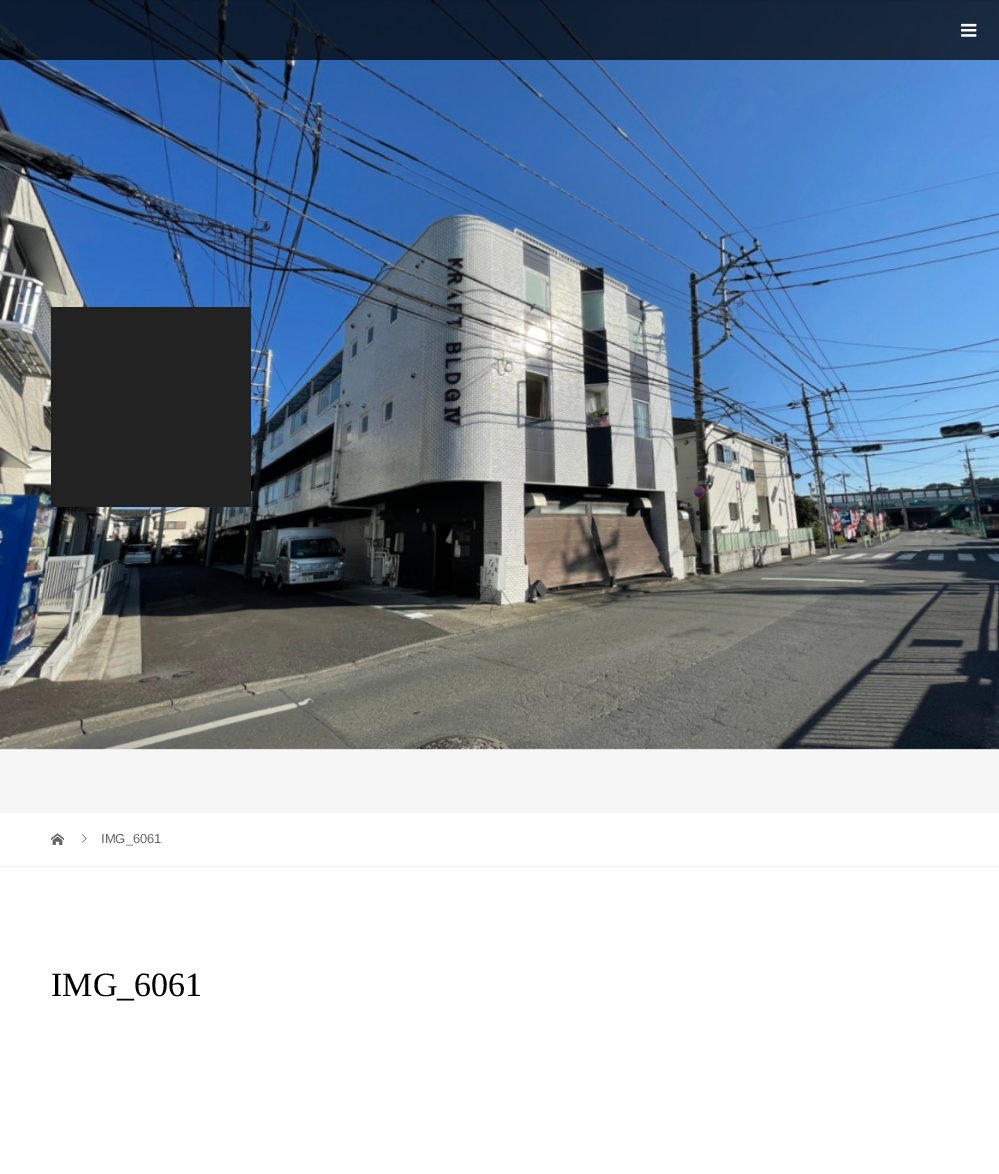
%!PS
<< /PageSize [999 1174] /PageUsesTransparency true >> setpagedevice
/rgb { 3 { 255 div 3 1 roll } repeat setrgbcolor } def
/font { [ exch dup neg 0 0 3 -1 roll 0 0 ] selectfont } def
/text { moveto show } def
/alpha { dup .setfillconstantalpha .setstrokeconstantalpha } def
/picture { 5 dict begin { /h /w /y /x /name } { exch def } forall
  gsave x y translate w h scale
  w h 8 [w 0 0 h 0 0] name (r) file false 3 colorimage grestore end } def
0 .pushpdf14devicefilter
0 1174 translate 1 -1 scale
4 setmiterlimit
255 255 255 rgb
0 0 999 1174 rectfill
246 246 246 rgb
0 748 999 65 rectfill
(img_02.rgb) 0 0 999 750 picture
0.7 alpha
0 0 0 rgb
0 0 999 60 rectfill
1 alpha
(img_01.rgb) 961 23 16 14 picture
34 34 34 rgb
51 307 200 200 rectfill
238 238 238 rgb
0 866 999 1 rectfill
(img_03.rgb) 51 833 13 12 picture
(img_04.rgb) 82 834 5 9 picture
/LiberationSans-Regular 13 font
102 102 102 rgb
(IMG_6061) 101 843 text
/LiberationSerif-Regular 34 font
0 0 0 rgb
(IMG_6061) 51 996 text
.poppdf14devicefilter showpage
